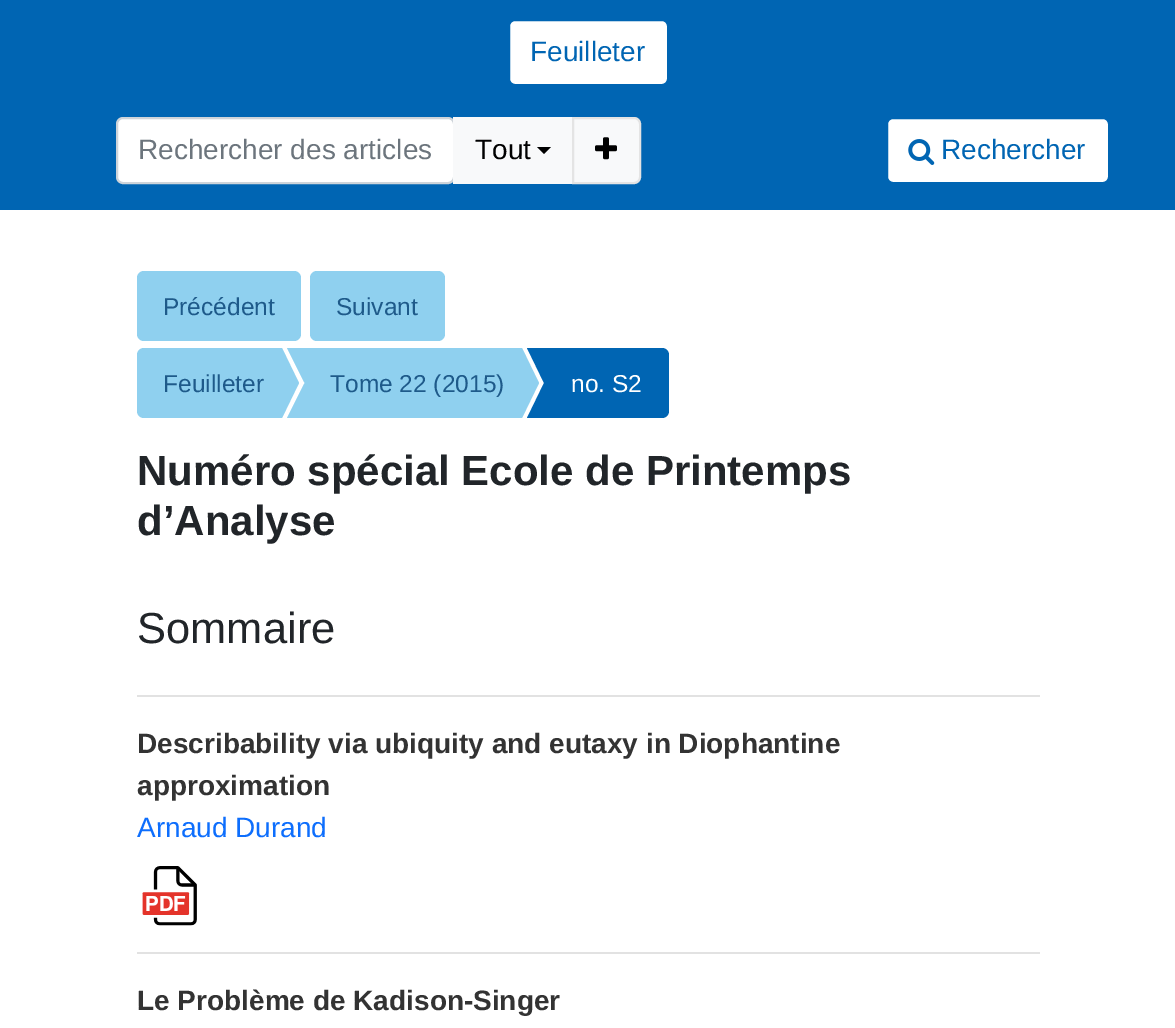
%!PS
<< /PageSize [1175 1028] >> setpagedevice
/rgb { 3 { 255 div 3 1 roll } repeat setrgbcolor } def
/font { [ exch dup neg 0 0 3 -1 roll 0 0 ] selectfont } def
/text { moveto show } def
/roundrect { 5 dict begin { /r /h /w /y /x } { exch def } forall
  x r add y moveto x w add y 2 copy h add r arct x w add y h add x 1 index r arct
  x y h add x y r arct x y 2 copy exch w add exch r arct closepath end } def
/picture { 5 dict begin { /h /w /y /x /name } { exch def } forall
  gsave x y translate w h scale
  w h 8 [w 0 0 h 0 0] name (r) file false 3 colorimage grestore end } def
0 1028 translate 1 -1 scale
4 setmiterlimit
255 255 255 rgb
0 0 1175 1028 rectfill
0 101 179 rgb
0 0 1175 210 rectfill
255 255 255 rgb
509 20 159 65 6 roundrect gsave fill grestore
0 101 179 rgb
2 setlinewidth
stroke
255 255 255 rgb
117 118 337 65 6 roundrect gsave fill grestore
206 212 218 rgb
stroke
248 249 250 rgb
453 117 119 67 rectfill
0 0 0 rgb
537 147 moveto 14 0 rlineto -7 7 rlineto closepath fill
248 249 250 rgb
573 118 moveto 61 0 rlineto 3.5 0 6 2.5 6 6 rcurveto 0 53 rlineto 0 3.5 -2.5 6 -6 6 rcurveto -61 0 rlineto closepath gsave fill grestore
228 228 228 rgb
stroke
(img_01.rgb) 595 137 22 23 picture
255 255 255 rgb
887 118 222 65 6 roundrect gsave fill grestore
0 101 179 rgb
stroke
(img_02.rgb) 908 139 27 26 picture
143 208 239 rgb
137 271 164 70 7 roundrect fill
310 271 135 70 7 roundrect fill
144 348 moveto 138 0 rlineto 0 70 rlineto -138 0 rlineto -4 0 -7 -3 -7 -7 rcurveto 0 -56 rlineto 0 -4 3 -7 7 -7 rcurveto closepath fill
282 418 moveto 0 -70 rlineto 17 35 rlineto closepath fill
322 348 200 70 rectfill
287 348 moveto 35 0 rlineto -17.5 35 rlineto closepath fill
305 348 17 70 rectfill
322 418 moveto -35 0 rlineto 17.5 -35 rlineto closepath fill
522 418 moveto 0 -70 rlineto 17 35 rlineto closepath fill
0 101 179 rgb
562 348 moveto 100 0 rlineto 4 0 7 3 7 7 rcurveto 0 56 rlineto 0 4 -3 7 -7 7 rcurveto -100 0 rlineto closepath fill
527 348 moveto 35 0 rlineto -18 35 rlineto closepath fill
544 348 18 70 rectfill
562 418 moveto -35 0 rlineto 17 -35 rlineto closepath fill
226 226 226 rgb
137 695 903 2 rectfill
(img_03.rgb) 142 866 55 60 picture
137 952 903 2 rectfill
/LiberationSans-Regular 28 font
0 101 179 rgb
(Feuilleter) 530 61 text
108 117 125 rgb
(Rechercher des articles) 138 159 text
0 0 0 rgb
(Tout) 475 159 text
0 101 179 rgb
(Rechercher) 941 159 text
/LiberationSans-Regular 24.5 font
30 90 138 rgb
(Précédent) 163 315 text
(Suivant) 336 315 text
(Feuilleter) 163 392 text
(Tome 22 \(2015\)) 330 392 text
255 255 255 rgb
(no. S2) 571 392 text
/LiberationSans-Bold 42 font
33 37 41 rgb
(Numéro spécial Ecole de Printemps) 137 485 text
(d’Analyse) 137 535 text
/LiberationSans-Regular 43.5 font
(Sommaire) 137 643 text
/LiberationSans-Bold 28 font
51 51 51 rgb
(Describability via ubiquity and eutaxy in Diophantine) 137 753 text
(approximation) 137 795 text
/LiberationSans-Regular 28 font
13 110 253 rgb
(Arnaud Durand) 137 837 text
/LiberationSans-Bold 28 font
51 51 51 rgb
(Le Problème de Kadison-Singer) 137 1010 text
showpage
